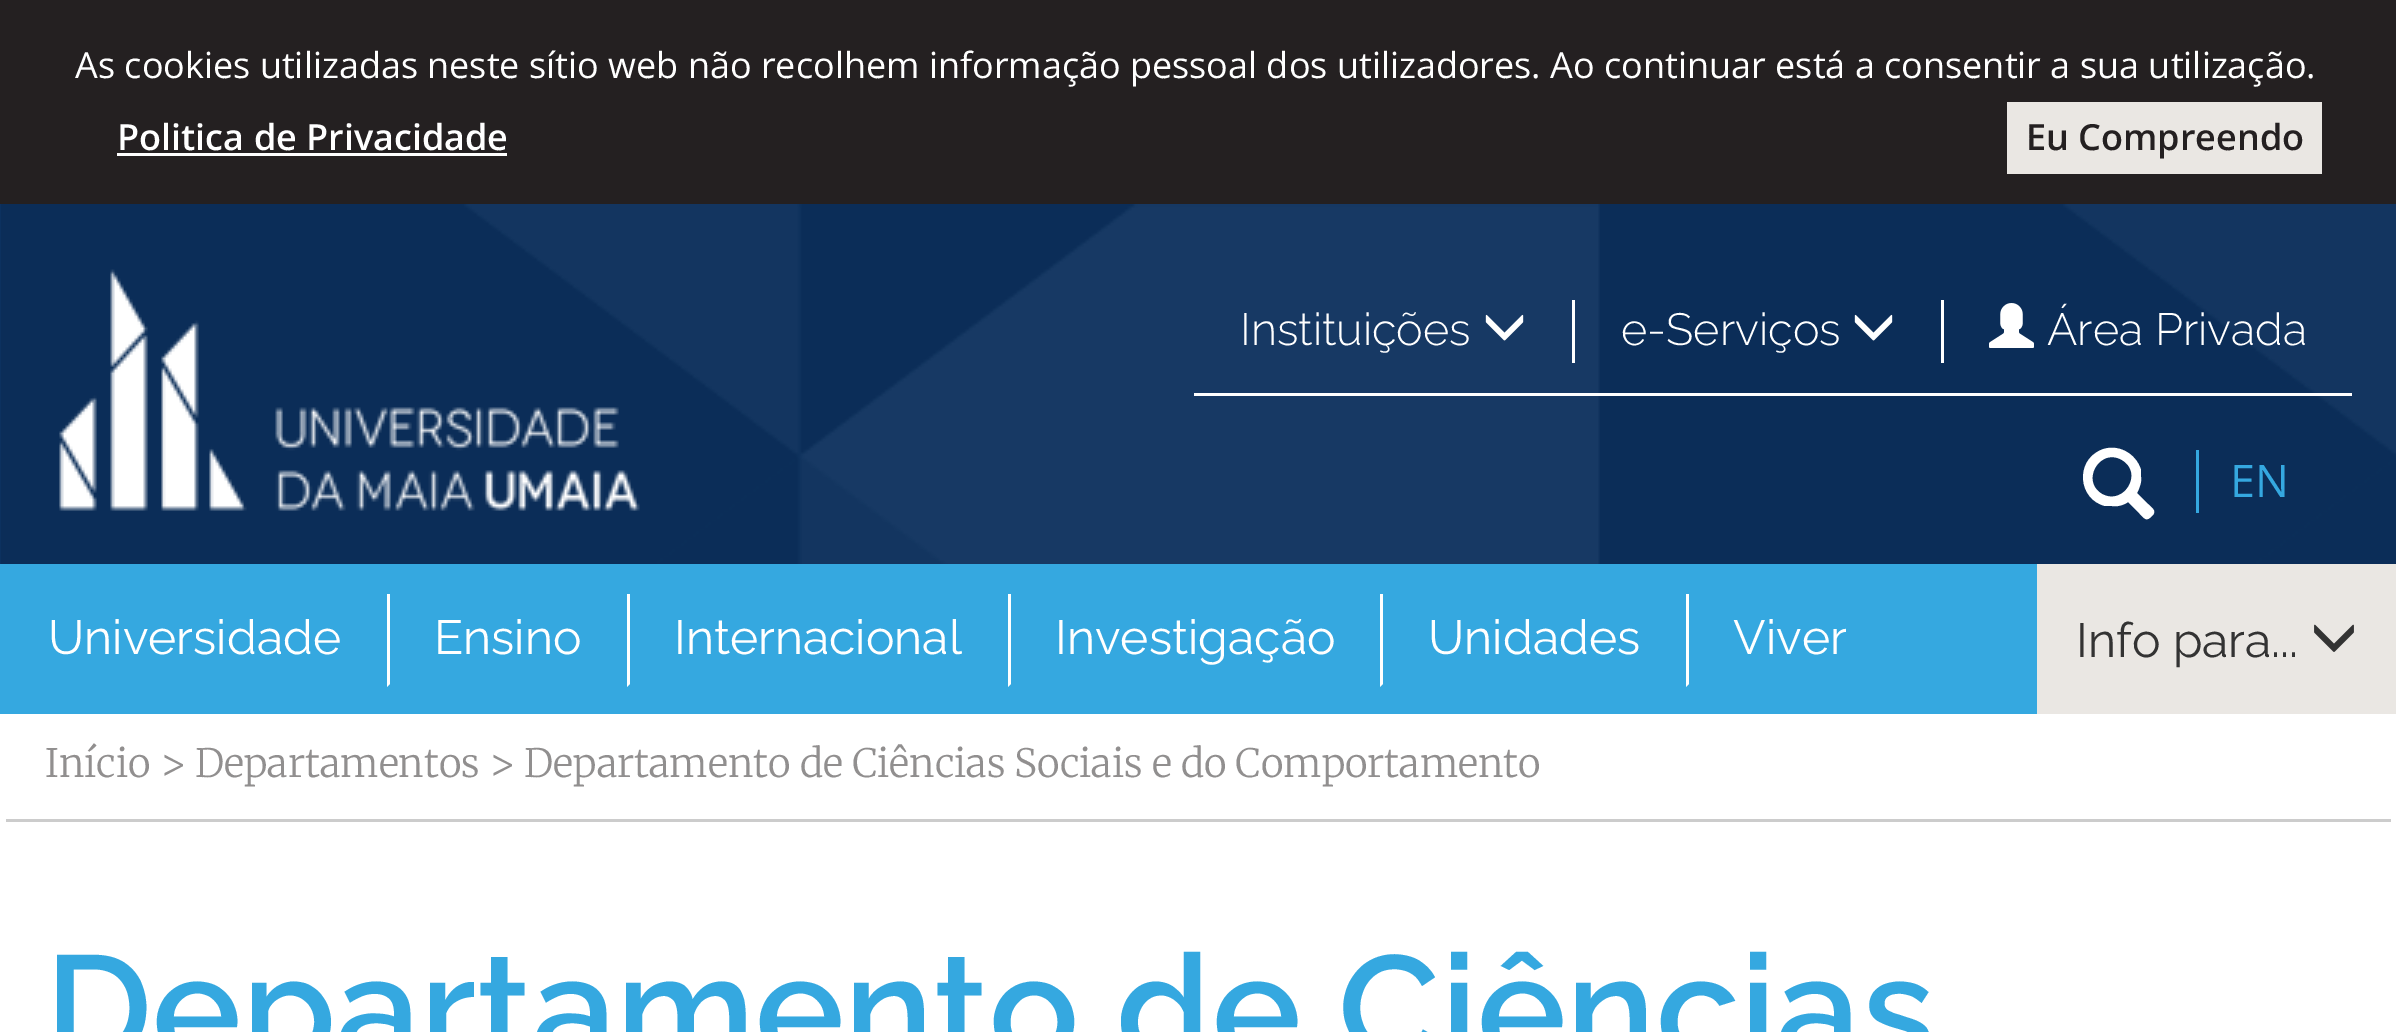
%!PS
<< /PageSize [2396 1032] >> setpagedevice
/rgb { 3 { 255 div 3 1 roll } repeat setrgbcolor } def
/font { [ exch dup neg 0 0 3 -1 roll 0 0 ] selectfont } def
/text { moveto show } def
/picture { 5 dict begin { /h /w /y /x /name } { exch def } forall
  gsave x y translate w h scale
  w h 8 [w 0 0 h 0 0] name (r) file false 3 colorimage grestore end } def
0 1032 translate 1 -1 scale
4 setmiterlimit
255 255 255 rgb
0 0 2396 1032 rectfill
36 32 33 rgb
0 0 2396 204 rectfill
255 255 255 rgb
117 153 390 3 rectfill
234 231 227 rgb
2007 102 315 72 rectfill
12 49 95 rgb
0 204 2396 360 rectfill
(img_01.rgb) 1 204 2395 360 picture
(img_02.rgb) 59 269 581 242 picture
255 255 255 rgb
1194 393 1158 3 rectfill
1572 300 3 63 rectfill
(img_03.rgb) 1485 314 39 27 picture
1941 300 3 63 rectfill
(img_04.rgb) 1854 314 39 27 picture
(img_05.rgb) 1989 303 45 45 picture
2101 450 moveto 16 -7 35 3 40 20 rcurveto 0 7 rlineto 1 5 -2 12 -4 16 rcurveto 11 11 rlineto 5 5 9 7 4 12 rcurveto -6 6 -7 3 -13 -3 rcurveto -11 -11 rlineto -4 3 -11 5 -16 4 rcurveto -7 0 rlineto -27 -7 -30 -45 -4 -56 rcurveto closepath 2122 460 moveto -22 -13 -42 21 -20 34 rcurveto 22 12 42 -21 20 -34 rcurveto closepath fill
53 168 224 rgb
2196 450 3 63 rectfill
0 564 2037 150 rectfill
255 255 255 rgb
387 687 moveto 0 -93 rlineto 3 0 rlineto 0 90 rlineto closepath fill
627 687 moveto 0 -93 rlineto 3 0 rlineto 0 90 rlineto closepath fill
1008 687 moveto 0 -93 rlineto 3 0 rlineto 0 90 rlineto closepath fill
1380 687 moveto 0 -93 rlineto 3 0 rlineto 0 90 rlineto closepath fill
1686 687 moveto 0 -93 rlineto 3 0 rlineto 0 90 rlineto closepath fill
234 231 227 rgb
2037 564 359 150 rectfill
(img_06.rgb) 2314 624 40 28 picture
204 204 204 rgb
6 819 2385 3 rectfill
/OpenSans-Regular 36 font
255 255 255 rgb
(As cookies utilizadas neste sítio web não recolhem informação pessoal dos utilizadores. Ao continuar está a consentir a sua utilização.) 75 78 text
/OpenSans-SemiBold 36 font
(Politica de Privacidade) 117 150 text
36 32 33 rgb
(Eu Compreendo) 2026 150 text
/Raleway-Light 45 font
255 255 255 rgb
(Instituições) 1240 345 text
(e-Serviços) 1621 345 text
(Área Privada) 2047 345 text
/OpenSans-Regular 45 font
53 168 224 rgb
(EN) 2230 497 text
/Raleway-Regular 48 font
255 255 255 rgb
(Universidade) 48 654 text
(Ensino) 434 654 text
(Internacional) 674 654 text
(Investigação) 1055 654 text
(Unidades) 1428 654 text
(Viver) 1733 654 text
51 51 51 rgb
(Info para...) 2076 657 text
/Merriweather-Light 39 font
145 143 143 rgb
(Início > Departamentos > Departamento de Ciências Sociais e do Comportamento) 45 777 text
/Raleway-SemiBold 150 font
53 168 224 rgb
(Departamento de Ciências) 45 1061 text
showpage
